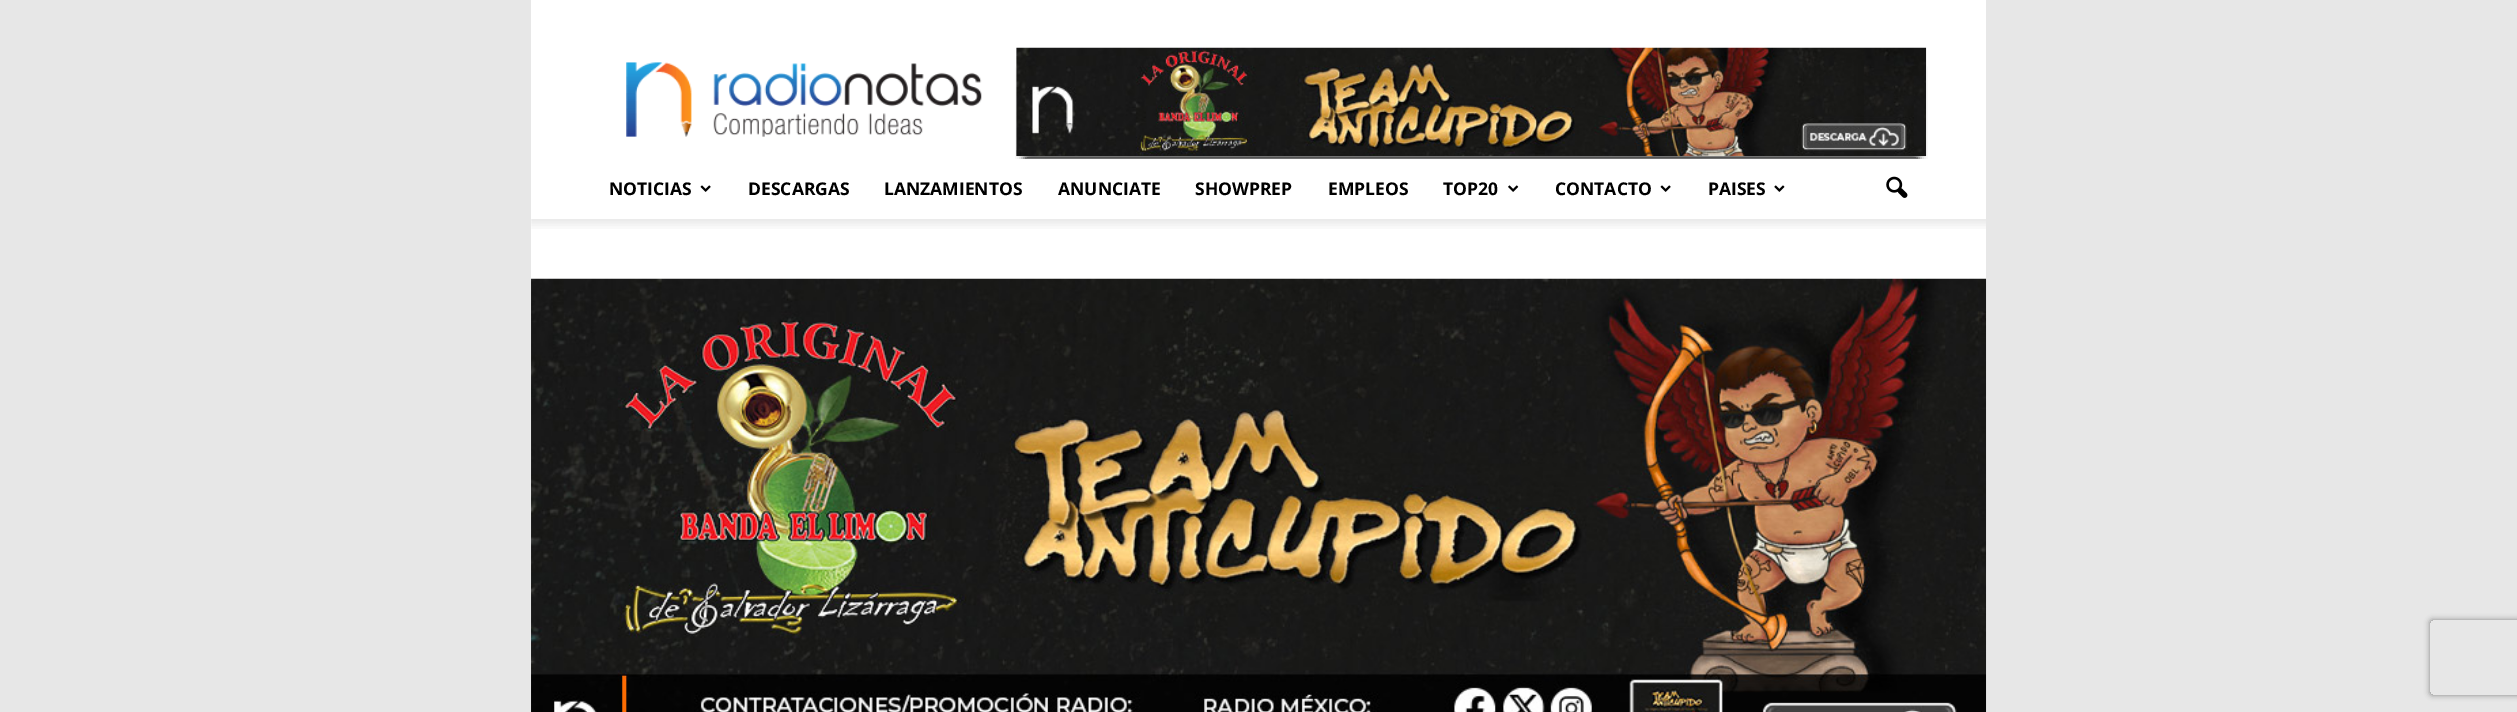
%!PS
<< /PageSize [2517 712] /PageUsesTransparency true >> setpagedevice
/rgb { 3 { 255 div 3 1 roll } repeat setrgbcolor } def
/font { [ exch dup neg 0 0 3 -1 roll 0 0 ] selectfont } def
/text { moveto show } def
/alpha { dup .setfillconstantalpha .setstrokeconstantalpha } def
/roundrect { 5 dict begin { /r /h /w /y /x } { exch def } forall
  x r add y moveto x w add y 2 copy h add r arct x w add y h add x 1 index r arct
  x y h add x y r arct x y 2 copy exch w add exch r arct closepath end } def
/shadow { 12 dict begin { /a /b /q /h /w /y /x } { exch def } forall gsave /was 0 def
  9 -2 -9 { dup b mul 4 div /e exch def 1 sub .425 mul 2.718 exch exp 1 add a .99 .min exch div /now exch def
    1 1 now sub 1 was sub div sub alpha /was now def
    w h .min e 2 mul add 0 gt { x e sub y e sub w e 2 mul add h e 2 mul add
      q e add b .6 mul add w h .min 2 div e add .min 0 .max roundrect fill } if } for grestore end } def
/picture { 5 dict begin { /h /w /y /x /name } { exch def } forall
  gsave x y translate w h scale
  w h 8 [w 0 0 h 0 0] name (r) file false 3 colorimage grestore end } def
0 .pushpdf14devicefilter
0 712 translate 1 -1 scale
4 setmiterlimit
231 231 231 rgb
0 0 2517 712 rectfill
255 255 255 rgb
531 0 1455 159 rectfill
(img_01.rgb) 626 62 356 75 picture
0 0 0 rgb
1024 68 895 93 0 4 0.8 shadow
233 233 233 rgb
1016 48 1 108 rectfill
(img_02.rgb) 1016 47 911 110 picture
0.15 alpha
0 0 0 rgb
1016 150 5 6 rectfill
1 alpha
255 255 255 rgb
531 159 1455 60 rectfill
(img_03.rgb) 700 185 11 7 picture
(img_04.rgb) 1508 185 11 7 picture
(img_03.rgb) 1660 185 11 7 picture
(img_05.rgb) 1774 185 11 7 picture
(img_06.rgb) 1886 176 22 22 picture
531 219 1455 493 rectfill
(img_07.rgb) 531 219 1455 10 picture
(img_08.rgb) 531 278 1456 434 picture
gsave
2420 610 moveto 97 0 rlineto 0 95 rlineto -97 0 rlineto closepath 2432.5 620 moveto 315 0 rlineto 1.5 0 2.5 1 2.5 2.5 rcurveto 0 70 rlineto 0 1.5 -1 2.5 -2.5 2.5 rcurveto -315 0 rlineto -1.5 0 -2.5 -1 -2.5 -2.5 rcurveto 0 -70 rlineto 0 -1.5 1 -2.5 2.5 -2.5 rcurveto closepath eoclip newpath
128 128 128 rgb
2430 620 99 75 2.5 3 1 shadow
grestore
/OpenSans-Bold 17.5 font
0 0 0 rgb
(NOTICIAS) 609 195 text
(DESCARGAS) 748 195 text
(LANZAMIENTOS) 884 195 text
(ANUNCIATE) 1058 195 text
(SHOWPREP) 1195 195 text
(EMPLEOS) 1328 195 text
(TOP20) 1443 195 text
(CONTACTO) 1555 195 text
(PAISES) 1708 195 text
.poppdf14devicefilter showpage
